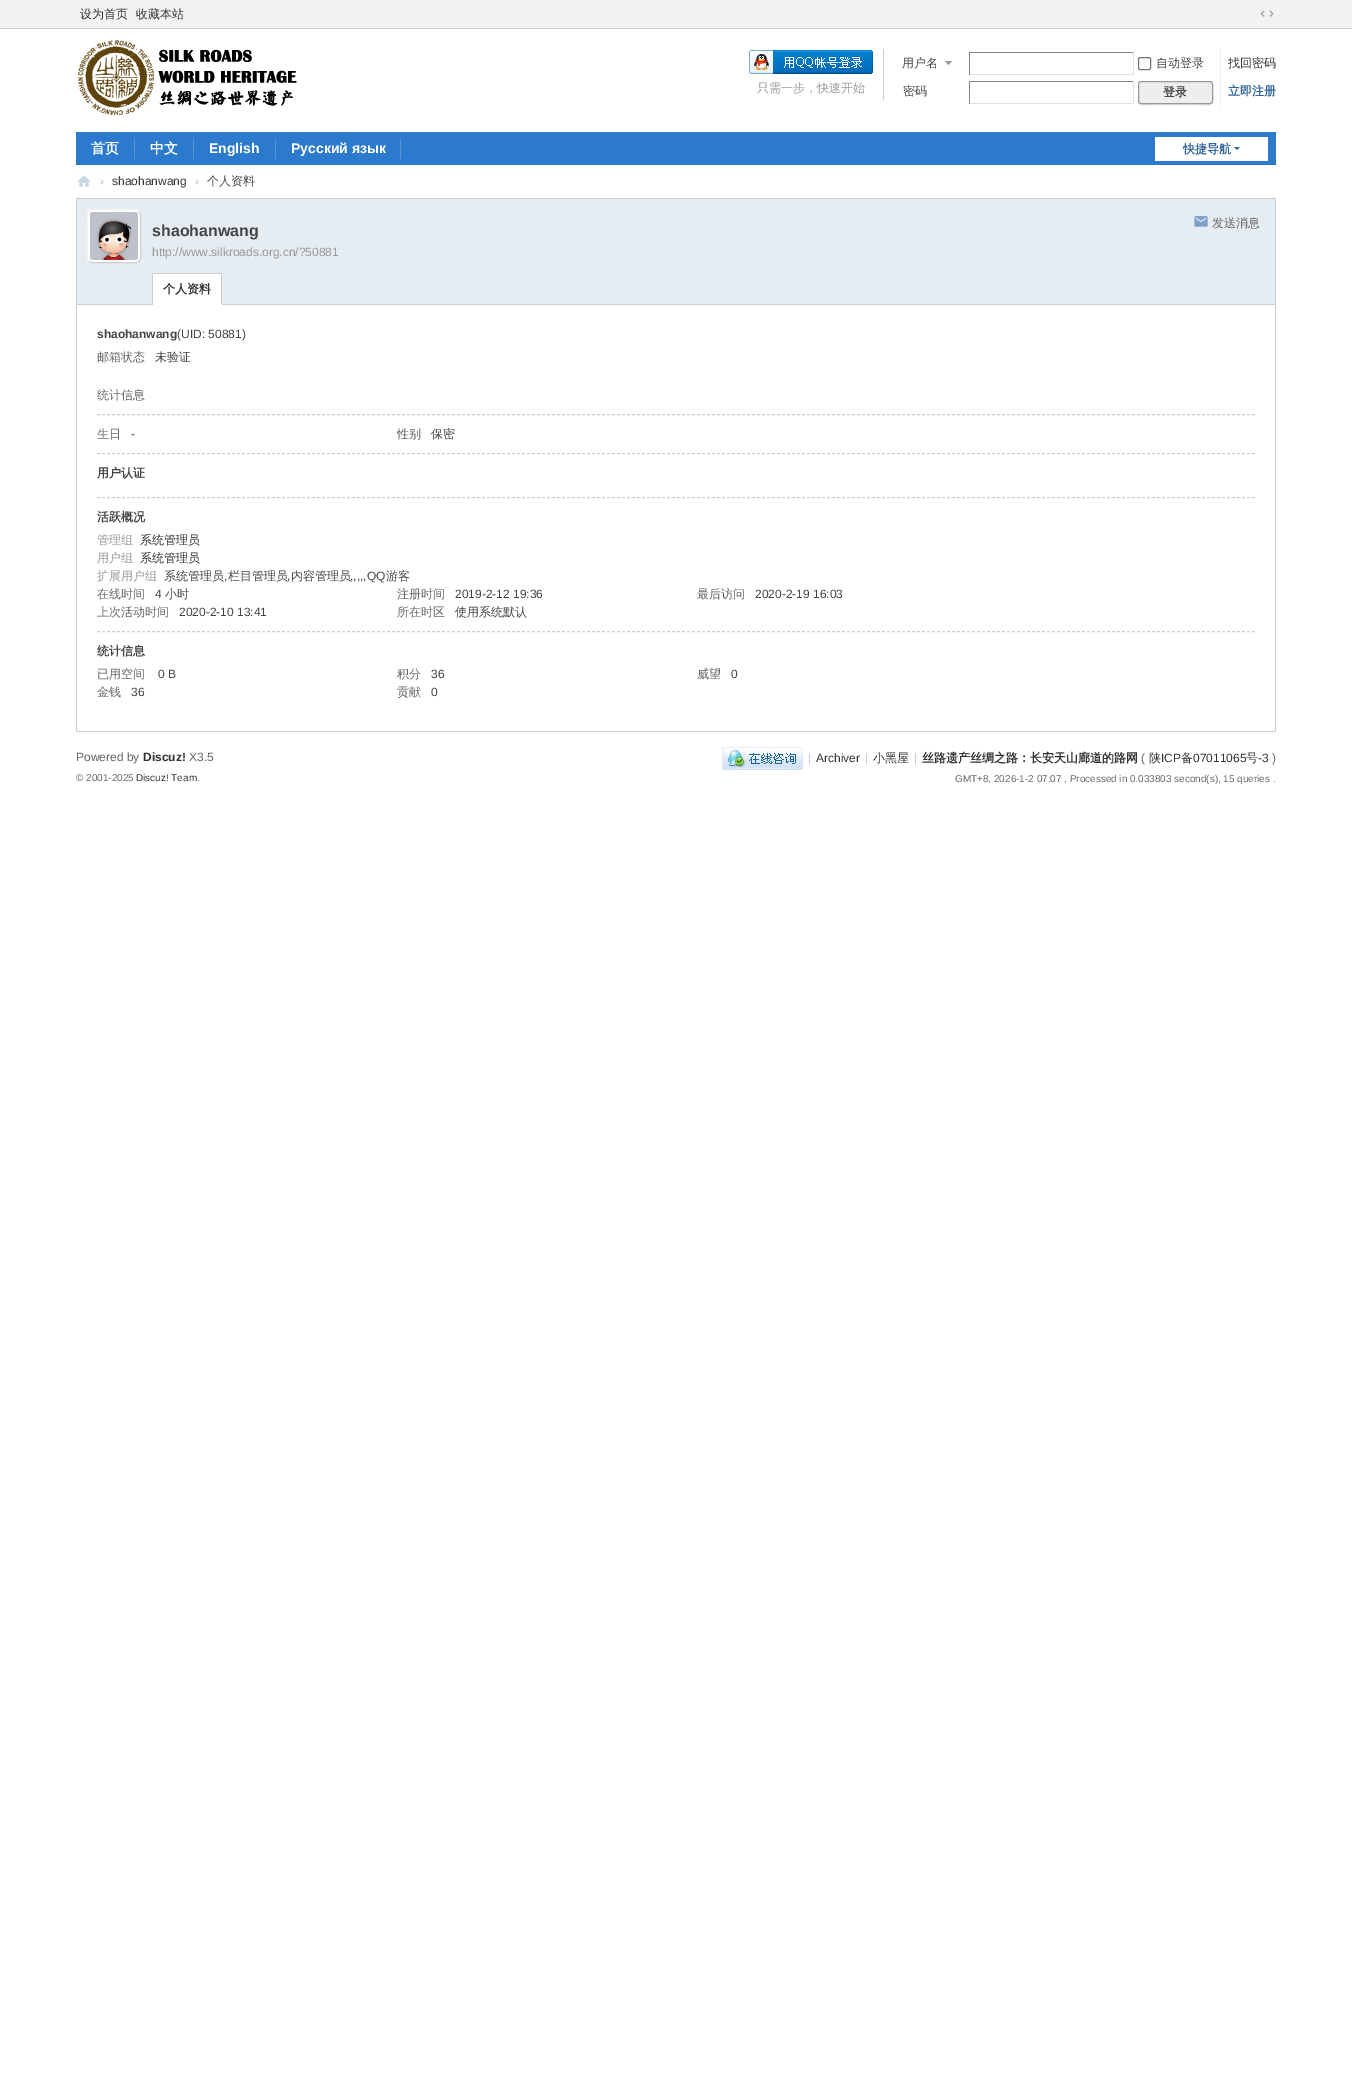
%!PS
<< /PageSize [1352 2081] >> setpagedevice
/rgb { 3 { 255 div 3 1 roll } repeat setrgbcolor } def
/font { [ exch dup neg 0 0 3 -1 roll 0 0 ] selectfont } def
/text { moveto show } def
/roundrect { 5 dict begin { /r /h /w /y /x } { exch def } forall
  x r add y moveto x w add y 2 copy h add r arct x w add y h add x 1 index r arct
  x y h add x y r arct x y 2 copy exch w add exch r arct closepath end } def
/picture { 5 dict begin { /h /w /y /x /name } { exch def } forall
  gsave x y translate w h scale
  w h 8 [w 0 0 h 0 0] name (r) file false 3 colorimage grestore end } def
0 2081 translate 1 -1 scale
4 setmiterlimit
255 255 255 rgb
0 0 1352 2081 rectfill
242 242 242 rgb
0 0 1352 28 rectfill
205 205 205 rgb
0 28 1352 1 rectfill
(img_01.rgb) 1260 10 14 7 picture
(img_02.rgb) 78 40 219 75 picture
883 49 1 51 rectfill
(img_03.rgb) 749 50 124 24 picture
153 153 153 rgb
952 61 moveto -7 0 rlineto 3.5 4 rlineto closepath fill
132 132 132 rgb
969 52 165 1 rectfill
224 224 224 rgb
1133 52 1 23 rectfill
969 74 165 1 rectfill
132 132 132 rgb
969 52 1 23 rectfill
118 118 118 rgb
1138.5 57.5 12 12 1.5 roundrect stroke
132 132 132 rgb
969 81 165 1 rectfill
224 224 224 rgb
1133 81 1 23 rectfill
969 103 165 1 rectfill
132 132 132 rgb
969 81 1 23 rectfill
229 237 242 rgb
1220 49 1 57 rectfill
229 229 229 rgb
1138 101 moveto 0 7 10 4 14 4 rcurveto 46 0 rlineto 5 0 15 3 15 -4 rcurveto 0 2 -1 3 -3 3 rcurveto -69 0 rlineto -2 0 -3 -1 -3 -3 rcurveto closepath fill
238 238 238 rgb
1138.5 81.5 74 22 2.5 roundrect gsave fill grestore
153 153 153 rgb
stroke
43 122 205 rgb
76 132 1200 33 rectfill
85 149 215 rgb
134 139 1 20 rectfill
193 139 1 20 rectfill
275 139 1 20 rectfill
400 139 1 20 rectfill
255 255 255 rgb
1155 137 113 24 rectfill
51 102 153 rgb
1234 147 moveto 6 0 rlineto -3 3 rlineto closepath fill
(img_04.rgb) 77 175 14 12 picture
229 237 242 rgb
77 199 1198 105 rectfill
204 204 204 rgb
76 198 1200 1 rectfill
1275 198 1 534 rectfill
76 198 1 107 rectfill
255 255 255 rgb
87 209 54 54 5 roundrect fill
205 205 205 rgb
139 211 moveto 2.5 2.5 1.5 8 1.5 10.5 rcurveto 0 14.5 rlineto 0 32 5.5 26.5 -26.5 26.5 rcurveto -14.5 0 rlineto -2.5 0 -8 1 -10.5 -1.5 rcurveto stroke
242 242 242 rgb
89 261 moveto -2.5 -2.5 -1.5 -8 -1.5 -10.5 rcurveto 0 -14.5 rlineto 0 -32 -5.5 -26.5 26.5 -26.5 rcurveto 14.5 0 rlineto 2.5 0 8 -1 10.5 1.5 rcurveto stroke
(img_05.rgb) 90 212 48 48 picture
(img_06.rgb) 1194 216 14 11 picture
205 205 205 rgb
77 304 1198 1 rectfill
255 255 255 rgb
153 274 68 30 rectfill
204 204 204 rgb
152 273 70 1 rectfill
221 273 1 32 rectfill
255 255 255 rgb
152 304 70 1 rectfill
204 204 204 rgb
152 273 1 32 rectfill
76 731 1200 1 rectfill
76 305 1 427 rectfill
205 205 205 rgb
[3 2] 0 setdash
97 453.5 moveto 1158 0 rlineto stroke
97 414.5 moveto 1158 0 rlineto stroke
97 497.5 moveto 1158 0 rlineto stroke
97 631.5 moveto 1158 0 rlineto stroke
(img_07.rgb) 722 747 81 23 picture
/WenQuanYiZenHei-Medium 12 font
51 51 51 rgb
(设为首页) 80 18 text
(收藏本站) 136 18 text
153 153 153 rgb
(只需一步，快速开始) 757 92 text
68 68 68 rgb
(用户名) 902 67 text
(自动登录) 1156 67 text
51 51 51 rgb
(找回密码) 1228 67 text
68 68 68 rgb
(密码) 903 95 text
/WenQuanYiZenHei-Bold 12 font
(登录) 1163 96 text
51 102 153 rgb
(立即注册) 1228 95 text
/WenQuanYiZenHei-Bold 14 font
255 255 255 rgb
(首页) 91 153 text
(中文) 150 153 text
/LiberationSans-Bold 14 font
(English) 209 153 text
(Pусский язык) 291 153 text
/WenQuanYiZenHei-Bold 12 font
51 102 153 rgb
(快捷导航) 1183 153 text
/LiberationSans-Regular 12 font
189 189 189 rgb
(›) 100 185 text
51 51 51 rgb
(shaohanwang) 112 185 text
189 189 189 rgb
(›) 195 185 text
/WenQuanYiZenHei-Medium 12 font
68 68 68 rgb
(个人资料) 207 185 text
/LiberationSans-Bold 16 font
(shaohanwang) 152 236 text
/LiberationSans-Regular 12 font
153 153 153 rgb
(http://www.silkroads.org.cn/?50881) 152 256 text
/WenQuanYiZenHei-Medium 12 font
102 102 102 rgb
(发送消息) 1212 227 text
/WenQuanYiZenHei-Bold 12 font
51 51 51 rgb
(个人资料) 163 293 text
/LiberationSans-Bold 12 font
68 68 68 rgb
(shaohanwang) 97 338 text
/LiberationSans-Regular 12 font
(\(UID: 50881\)) 177 338 text
/WenQuanYiZenHei-Medium 12 font
102 102 102 rgb
(邮箱状态) 97 361 text
68 68 68 rgb
(未验证) 155 361 text
102 102 102 rgb
(统计信息) 97 399 text
(生日) 97 438 text
/LiberationSans-Regular 12 font
68 68 68 rgb
(-) 131 438 text
/WenQuanYiZenHei-Medium 12 font
102 102 102 rgb
(性别) 397 438 text
68 68 68 rgb
(保密) 431 438 text
/WenQuanYiZenHei-Bold 12 font
(用户认证) 97 477 text
(活跃概况) 97 521 text
/WenQuanYiZenHei-Medium 12 font
153 153 153 rgb
(管理组) 97 544 text
51 51 51 rgb
(系统管理员) 140 544 text
153 153 153 rgb
(用户组) 97 562 text
51 51 51 rgb
(系统管理员) 140 562 text
153 153 153 rgb
(扩展用户组) 97 580 text
68 68 68 rgb
(系统管理员 栏目管理员 内容管理员) 164 580 text
/LiberationSans-Regular 12 font
(,,,,,QQ) 350 580 text
/WenQuanYiZenHei-Medium 12 font
(游客) 386 580 text
/LiberationSans-Regular 12 font
(,) 224 580 text
(,) 287 580 text
/WenQuanYiZenHei-Medium 12 font
102 102 102 rgb
(在线时间) 97 598 text
/LiberationSans-Regular 12 font
68 68 68 rgb
(4) 155 598 text
/WenQuanYiZenHei-Medium 12 font
(小时) 165 598 text
102 102 102 rgb
(注册时间) 397 598 text
/LiberationSans-Regular 12 font
68 68 68 rgb
(2019-2-12 19:36) 455 598 text
/WenQuanYiZenHei-Medium 12 font
102 102 102 rgb
(最后访问) 697 598 text
/LiberationSans-Regular 12 font
68 68 68 rgb
(2020-2-19 16:03) 755 598 text
/WenQuanYiZenHei-Medium 12 font
102 102 102 rgb
(上次活动时间) 97 616 text
/LiberationSans-Regular 12 font
68 68 68 rgb
(2020-2-10 13:41) 179 616 text
/WenQuanYiZenHei-Medium 12 font
102 102 102 rgb
(所在时区) 397 616 text
68 68 68 rgb
(使用系统默认) 455 616 text
/WenQuanYiZenHei-Bold 12 font
(统计信息) 97 655 text
/WenQuanYiZenHei-Medium 12 font
102 102 102 rgb
(已用空间) 97 678 text
/LiberationSans-Regular 12 font
68 68 68 rgb
(0 B) 158 678 text
/WenQuanYiZenHei-Medium 12 font
102 102 102 rgb
(积分) 397 678 text
/LiberationSans-Regular 12 font
68 68 68 rgb
(36) 431 678 text
/WenQuanYiZenHei-Medium 12 font
102 102 102 rgb
(威望) 697 678 text
/LiberationSans-Regular 12 font
68 68 68 rgb
(0) 731 678 text
/WenQuanYiZenHei-Medium 12 font
102 102 102 rgb
(金钱) 97 696 text
/LiberationSans-Regular 12 font
68 68 68 rgb
(36) 131 696 text
/WenQuanYiZenHei-Medium 12 font
102 102 102 rgb
(贡献) 397 696 text
/LiberationSans-Regular 12 font
68 68 68 rgb
(0) 431 696 text
102 102 102 rgb
(Powered by) 76 761 text
/LiberationSans-Bold 12 font
51 51 51 rgb
(Discuz!) 143 761 text
/LiberationSans-Regular 12 font
102 102 102 rgb
(X3.5) 189 761 text
/LiberationSans-Regular 9.95 font
(© 2001-2025) 76 781 text
51 51 51 rgb
(Discuz! Team) 136 781 text
102 102 102 rgb
(.) 197 781 text
/LiberationSans-Regular 12 font
204 204 204 rgb
(|) 808 762 text
51 51 51 rgb
(Archiver) 816 762 text
204 204 204 rgb
(|) 865 762 text
/WenQuanYiZenHei-Medium 12 font
51 51 51 rgb
(小黑屋) 873 762 text
/LiberationSans-Regular 12 font
204 204 204 rgb
(|) 914 762 text
/WenQuanYiZenHei-Bold 12 font
51 51 51 rgb
(丝路遗产丝绸之路：长安天山廊道的路网) 922 762 text
/LiberationSans-Regular 12 font
102 102 102 rgb
(\() 1141 762 text
/WenQuanYiZenHei-Medium 12 font
51 51 51 rgb
(陕) 1149 762 text
/LiberationSans-Regular 12 font
(ICP) 1161 762 text
/WenQuanYiZenHei-Medium 12 font
(备) 1181 762 text
/LiberationSans-Regular 12 font
(07011065) 1193 762 text
/WenQuanYiZenHei-Medium 12 font
(号) 1246 762 text
/LiberationSans-Regular 12 font
(-3) 1258 762 text
102 102 102 rgb
(\)) 1272 762 text
/LiberationSans-Regular 9.95 font
(GMT+8, 2026-1-2 07:07 , Processed in 0.033803 second\(s\), 15 queries .) 955 782 text
showpage
